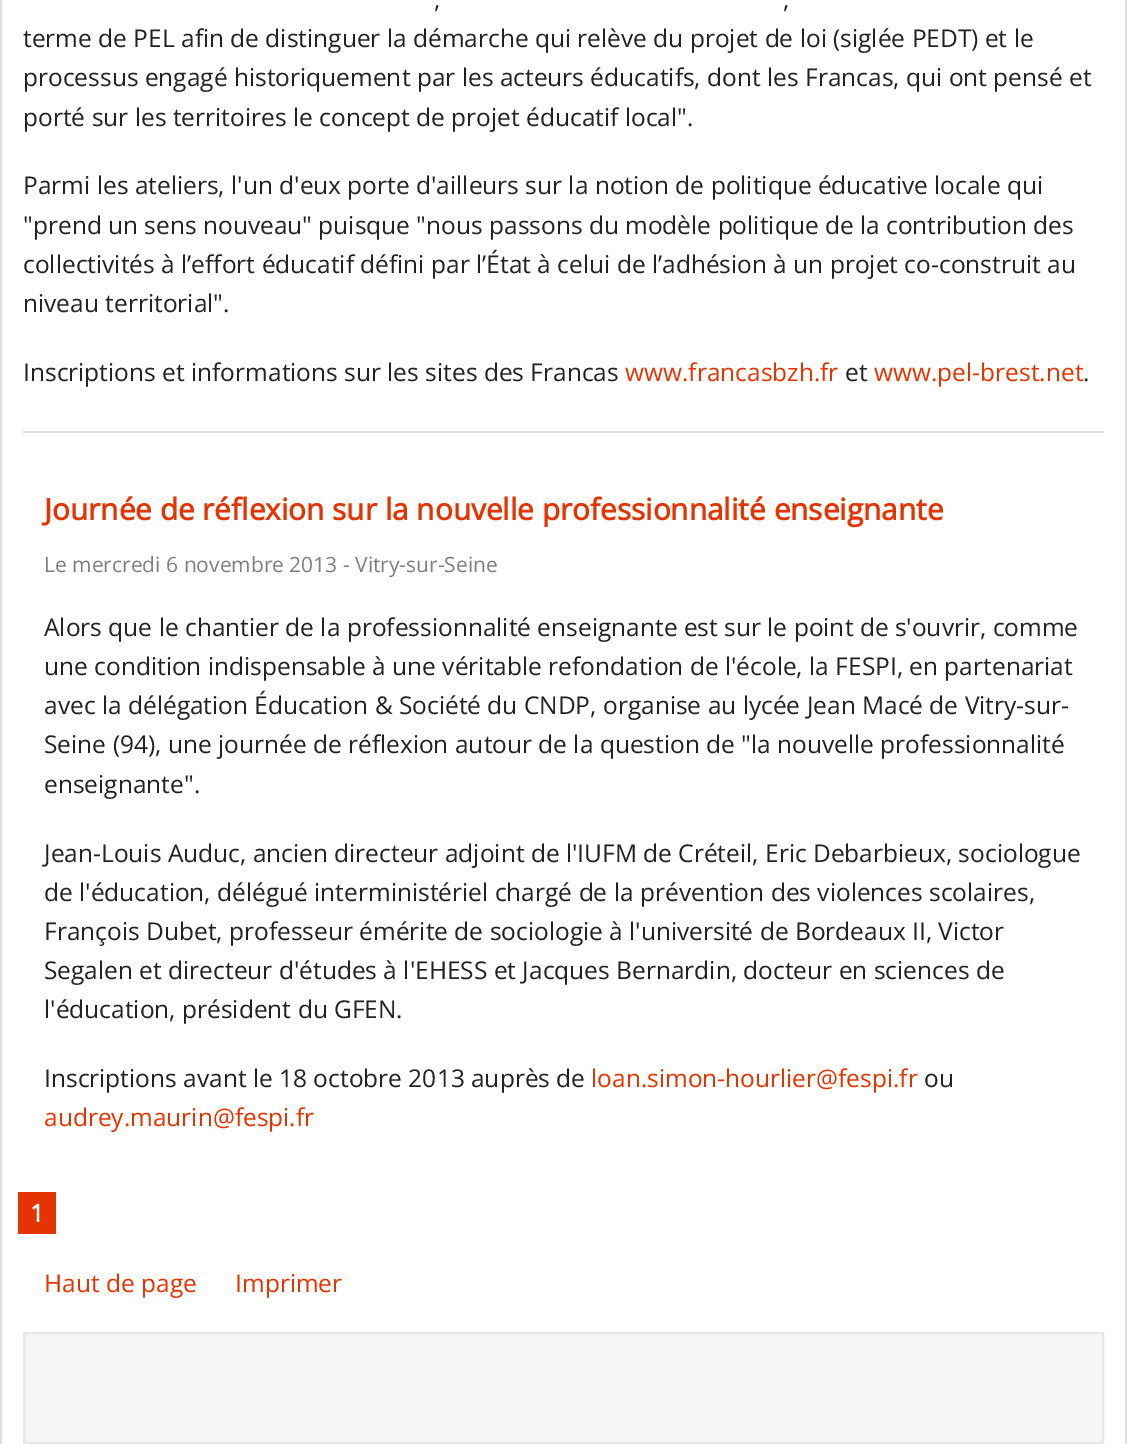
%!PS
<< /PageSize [1127 1444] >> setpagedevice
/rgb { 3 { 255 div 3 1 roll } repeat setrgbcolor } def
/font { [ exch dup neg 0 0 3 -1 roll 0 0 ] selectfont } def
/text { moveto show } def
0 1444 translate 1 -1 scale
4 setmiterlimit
255 255 255 rgb
0 0 1127 1444 rectfill
221 221 221 rgb
1125 0 2 1444 rectfill
0 0 2 1444 rectfill
23 431 1081 2 rectfill
227 52 1 rgb
18 1192 38 42 rectfill
246 246 246 rgb
24 1333 moveto 1079 0 rlineto 0 110 rlineto -1079 0 rlineto closepath gsave fill grestore
230 230 230 rgb
2 setlinewidth
stroke
/OpenSans-Regular 24.5 font
34 34 34 rgb
(,) 434 8 text
(,) 783 8 text
(terme de PEL afin de distinguer la démarche qui relève du projet de loi \(siglée PEDT\) et le) 23 47 text
(processus engagé historiquement par les acteurs éducatifs, dont les Francas, qui ont pensé et) 23 86 text
(porté sur les territoires le concept de projet éducatif local".) 23 126 text
(Parmi les ateliers, l'un d'eux porte d'ailleurs sur la notion de politique éducative locale qui) 23 194 text
("prend un sens nouveau" puisque "nous passons du modèle politique de la contribution des) 23 234 text
(collectivités à l’effort éducatif défini par l’État à celui de l’adhésion à un projet co-construit au) 23 273 text
(niveau territorial".) 23 312 text
(Inscriptions et informations sur les sites des Francas) 23 381 text
227 52 1 rgb
(www.francasbzh.fr) 625 381 text
34 34 34 rgb
(et) 845 381 text
227 52 1 rgb
(www.pel-brest.net) 874 381 text
34 34 34 rgb
(.) 1083 381 text
/OpenSans-Bold 29.75 font
227 52 1 rgb
(Journée de réflexion sur la nouvelle professionnalité enseignante) 44 520 text
/OpenSans-Regular 21 font
127 127 127 rgb
(Le mercredi 6 novembre 2013 - Vitry-sur-Seine) 44 572 text
/OpenSans-Regular 24.5 font
34 34 34 rgb
(Alors que le chantier de la professionnalité enseignante est sur le point de s'ouvrir, comme) 44 636 text
(une condition indispensable à une véritable refondation de l'école, la FESPI, en partenariat) 44 675 text
(avec la délégation Éducation & Société du CNDP, organise au lycée Jean Macé de Vitry-sur-) 44 714 text
(Seine \(94\), une journée de réflexion autour de la question de "la nouvelle professionnalité) 44 753 text
(enseignante".) 44 793 text
(Jean-Louis Auduc, ancien directeur adjoint de l'IUFM de Créteil, Eric Debarbieux, sociologue) 44 862 text
(de l'éducation, délégué interministériel chargé de la prévention des violences scolaires,) 44 901 text
(François Dubet, professeur émérite de sociologie à l'université de Bordeaux II, Victor) 44 940 text
(Segalen et directeur d'études à l'EHESS et Jacques Bernardin, docteur en sciences de) 44 979 text
(l'éducation, président du GFEN.) 44 1018 text
(Inscriptions avant le 18 octobre 2013 auprès de) 44 1087 text
227 52 1 rgb
(loan.simon-hourlier@fespi.fr) 591 1087 text
34 34 34 rgb
(ou) 924 1087 text
227 52 1 rgb
(audrey.maurin@fespi.fr) 44 1126 text
/OpenSans-Bold 24.5 font
255 255 255 rgb
(1) 30 1222 text
/OpenSans-Regular 24.5 font
227 52 1 rgb
(Haut de page) 44 1292 text
(Imprimer) 235 1292 text
showpage
